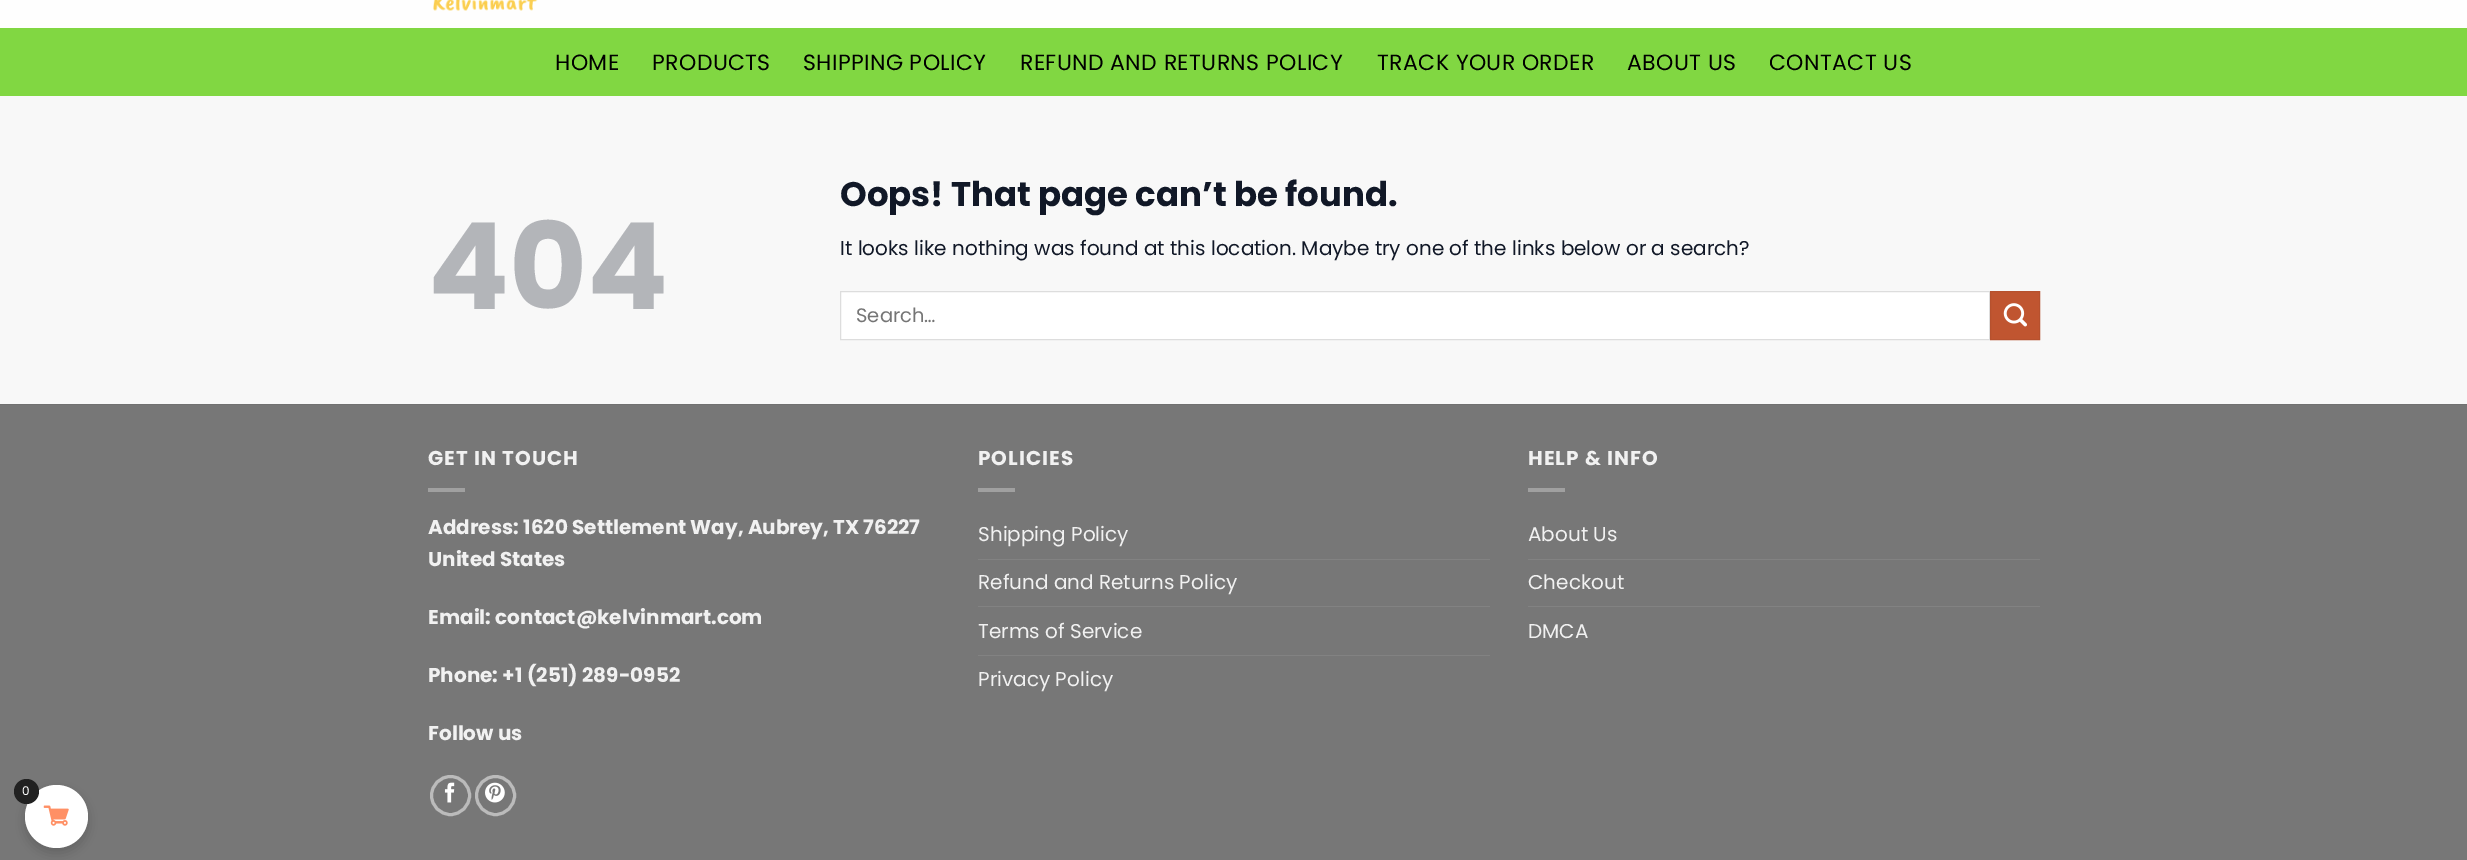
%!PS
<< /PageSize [2467 860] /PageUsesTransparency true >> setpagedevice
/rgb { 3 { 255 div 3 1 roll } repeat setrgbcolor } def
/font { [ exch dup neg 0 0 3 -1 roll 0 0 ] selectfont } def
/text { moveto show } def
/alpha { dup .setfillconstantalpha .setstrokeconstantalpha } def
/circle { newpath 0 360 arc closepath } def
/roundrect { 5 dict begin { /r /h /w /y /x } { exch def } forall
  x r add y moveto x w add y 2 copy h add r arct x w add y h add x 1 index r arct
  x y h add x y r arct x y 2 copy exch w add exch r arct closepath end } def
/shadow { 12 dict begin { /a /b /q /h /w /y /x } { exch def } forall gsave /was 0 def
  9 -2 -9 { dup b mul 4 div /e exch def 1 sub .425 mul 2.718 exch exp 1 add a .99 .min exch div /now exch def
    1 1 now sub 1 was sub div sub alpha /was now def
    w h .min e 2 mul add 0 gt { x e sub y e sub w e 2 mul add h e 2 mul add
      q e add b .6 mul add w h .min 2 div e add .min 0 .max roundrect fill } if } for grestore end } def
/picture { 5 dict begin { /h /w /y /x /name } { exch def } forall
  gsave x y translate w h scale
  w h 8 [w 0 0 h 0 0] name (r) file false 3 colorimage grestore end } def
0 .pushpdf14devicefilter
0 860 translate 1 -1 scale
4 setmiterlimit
248 248 248 rgb
0 0 2467 860 rectfill
254 254 254 rgb
0 0 2467 28 rectfill
(img_01.rgb) 433 0 105 11 picture
129 215 66 rgb
0 28 2467 68 rectfill
255 255 255 rgb
840.5 291.5 moveto 1149 0 rlineto 0 48 rlineto -1149 0 rlineto closepath gsave fill grestore
221 221 221 rgb
stroke
192 85 48 rgb
1990.5 291.5 moveto 49 0 rlineto 0 48 rlineto -49 0 rlineto closepath gsave fill grestore
182 81 46 rgb
stroke
(img_02.rgb) 2003 303 24 24 picture
119 119 119 rgb
0 405 2467 455 rectfill
113 113 113 rgb
0 404 2467 1 rectfill
160 160 160 rgb
428 488 37 4 rectfill
187 187 187 rgb
3 setlinewidth
450.5 795.5 19 circle stroke
(img_03.rgb) 444 782 11 21 picture
495.5 795.5 19 circle stroke
(img_04.rgb) 485 782 20 21 picture
160 160 160 rgb
978 488 37 4 rectfill
130 130 130 rgb
978 559 512 1 rectfill
978 606 512 1 rectfill
978 655 512 1 rectfill
160 160 160 rgb
1528 488 37 4 rectfill
130 130 130 rgb
1528 559 512 1 rectfill
1528 606 512 1 rectfill
0 0 0 rgb
25 790 63 63 31.5 6 0.17 shadow
255 255 255 rgb
56.5 816.5 31.5 circle fill
33 33 33 rgb
26.5 791.5 12.5 circle fill
(img_05.rgb) 43 805 26 21 picture
/Poppins-Regular 22 font
0 0 0 rgb
555 70 moveto 0.4 0 (HOME) ashow
652 70 moveto 0.4 0 (PRODUCTS) ashow
803 70 moveto 0.4 0 (SHIPPING POLICY) ashow
1020 70 moveto 0.4 0 (REFUND AND RETURNS POLICY) ashow
1377 70 moveto 0.4 0 (TRACK YOUR ORDER) ashow
1627 70 moveto 0.4 0 (ABOUT US) ashow
1769 70 moveto 0.4 0 (CONTACT US) ashow
/Poppins-Bold 120 font
179 181 185 rgb
(404) 428 309 text
/Poppins-Bold 34 font
17 24 39 rgb
(Oops! That page can’t be found.) 840 206 text
/Poppins-Regular 20 font
(It looks like nothing was found at this location. Maybe try one of the links below or a search?) 840 255 text
/Poppins-Regular 19.5 font
117 117 117 rgb
(Search…) 856 322 text
/Poppins-Bold 20 font
241 241 241 rgb
428 465 moveto 1 0 (GET IN TOUCH) ashow
(Address: 1620 Settlement Way, Aubrey, TX 76227) 428 534 text
(United States) 428 566 text
(Email: contact@kelvinmart.com) 428 624 text
(Phone: +1 \(251\) 289-0952) 428 682 text
(Follow us) 428 740 text
978 465 moveto 1 0 (POLICIES) ashow
/Poppins-Regular 20 font
(Shipping Policy) 978 541 text
(Refund and Returns Policy) 978 589 text
(Terms of Service) 978 638 text
(Privacy Policy) 978 686 text
/Poppins-Bold 20 font
1528 465 moveto 1 0 (HELP & INFO) ashow
/Poppins-Regular 20 font
(About Us) 1528 541 text
(Checkout) 1528 589 text
(DMCA) 1528 638 text
/Poppins-Regular 12 font
255 255 255 rgb
(0) 22 795 text
.poppdf14devicefilter showpage
